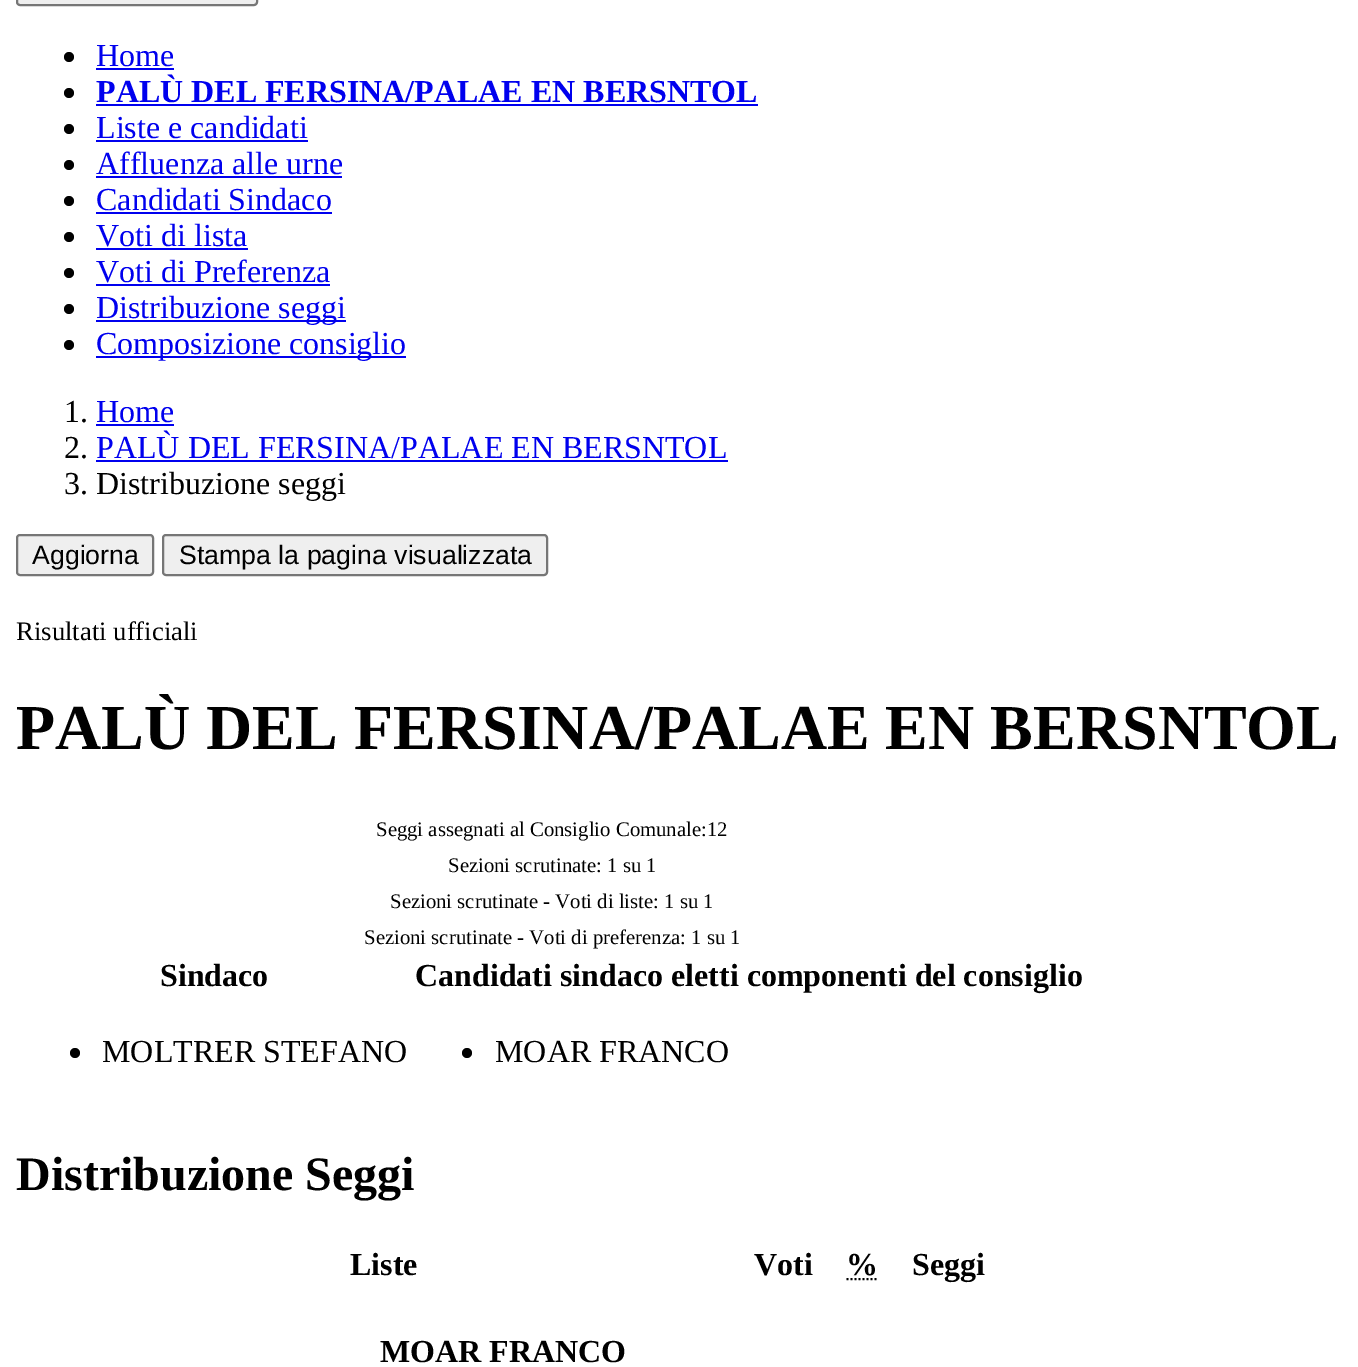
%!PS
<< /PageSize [1358 1367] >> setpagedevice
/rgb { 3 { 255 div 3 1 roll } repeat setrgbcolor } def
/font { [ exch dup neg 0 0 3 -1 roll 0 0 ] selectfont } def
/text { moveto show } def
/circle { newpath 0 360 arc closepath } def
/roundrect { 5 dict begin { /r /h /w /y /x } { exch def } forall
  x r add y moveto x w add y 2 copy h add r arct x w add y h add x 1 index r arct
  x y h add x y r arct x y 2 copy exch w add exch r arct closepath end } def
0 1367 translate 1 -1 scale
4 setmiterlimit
255 255 255 rgb
0 0 1358 1367 rectfill
239 239 239 rgb
17 -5 240 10 3 roundrect gsave fill grestore
118 118 118 rgb
2 setlinewidth
stroke
0 0 0 rgb
69 57 5 circle fill
0 0 238 rgb
96 68 78 2 rectfill
0 0 0 rgb
69 93 5 circle fill
0 0 238 rgb
96 104 662 2 rectfill
0 0 0 rgb
69 129 5 circle fill
0 0 238 rgb
96 140 212 2 rectfill
0 0 0 rgb
69 165 5 circle fill
0 0 238 rgb
96 176 246 2 rectfill
0 0 0 rgb
69 201 5 circle fill
0 0 238 rgb
96 212 236 2 rectfill
0 0 0 rgb
69 237 5 circle fill
0 0 238 rgb
96 248 152 2 rectfill
0 0 0 rgb
69 273 5 circle fill
0 0 238 rgb
96 284 234 2 rectfill
0 0 0 rgb
69 309 5 circle fill
0 0 238 rgb
96 320 250 2 rectfill
0 0 0 rgb
69 345 5 circle fill
0 0 238 rgb
96 356 310 2 rectfill
96 424 78 2 rectfill
96 460 632 2 rectfill
239 239 239 rgb
17 535 136 40 3 roundrect gsave fill grestore
118 118 118 rgb
stroke
239 239 239 rgb
163 535 384 40 3 roundrect gsave fill grestore
118 118 118 rgb
stroke
0 0 0 rgb
75 1053 5 circle fill
467 1053 5 circle fill
[2 2] 0 setdash
846.5 1279 moveto 32 0 rlineto stroke
/LiberationSerif-Regular 32 font
0 0 238 rgb
(Home) 96 66 text
/LiberationSerif-Bold 32 font
(PALÙ DEL FERSINA/PALAE EN BERSNTOL) 96 102 text
/LiberationSerif-Regular 32 font
(Liste e candidati) 96 138 text
(Affluenza alle urne) 96 174 text
(Candidati Sindaco) 96 210 text
(Voti di lista) 96 246 text
(Voti di Preferenza) 96 282 text
(Distribuzione seggi) 96 318 text
(Composizione consiglio) 96 354 text
0 0 0 rgb
(1.) 64 422 text
0 0 238 rgb
(Home) 96 422 text
0 0 0 rgb
(2.) 64 458 text
0 0 238 rgb
(PALÙ DEL FERSINA/PALAE EN BERSNTOL) 96 458 text
0 0 0 rgb
(3. Distribuzione seggi) 64 494 text
/LiberationSans-Regular 26.7 font
(Aggiorna) 32 564 text
(Stampa la pagina visualizzata) 179 564 text
/LiberationSerif-Regular 26.7 font
(Risultati ufficiali) 16 640 text
/LiberationSerif-Bold 64 font
(PALÙ DEL FERSINA/PALAE EN BERSNTOL) 16 749 text
/LiberationSerif-Regular 20.75 font
(Seggi assegnati al Consiglio Comunale:12) 376 836 text
(Sezioni scrutinate: 1 su 1) 448 872 text
(Sezioni scrutinate - Voti di liste: 1 su 1) 390 908 text
(Sezioni scrutinate - Voti di preferenza: 1 su 1) 364 944 text
/LiberationSerif-Bold 32 font
(Sindaco) 160 986 text
(Candidati sindaco eletti componenti del consiglio) 415 986 text
/LiberationSerif-Regular 32 font
(MOLTRER STEFANO) 102 1062 text
(MOAR FRANCO) 495 1062 text
/LiberationSerif-Bold 48 font
(Distribuzione Seggi) 16 1190 text
/LiberationSerif-Bold 32 font
(Liste) 350 1275 text
(Voti) 754 1275 text
(%) 846 1275 text
(Seggi) 912 1275 text
(MOAR FRANCO) 380 1362 text
showpage
